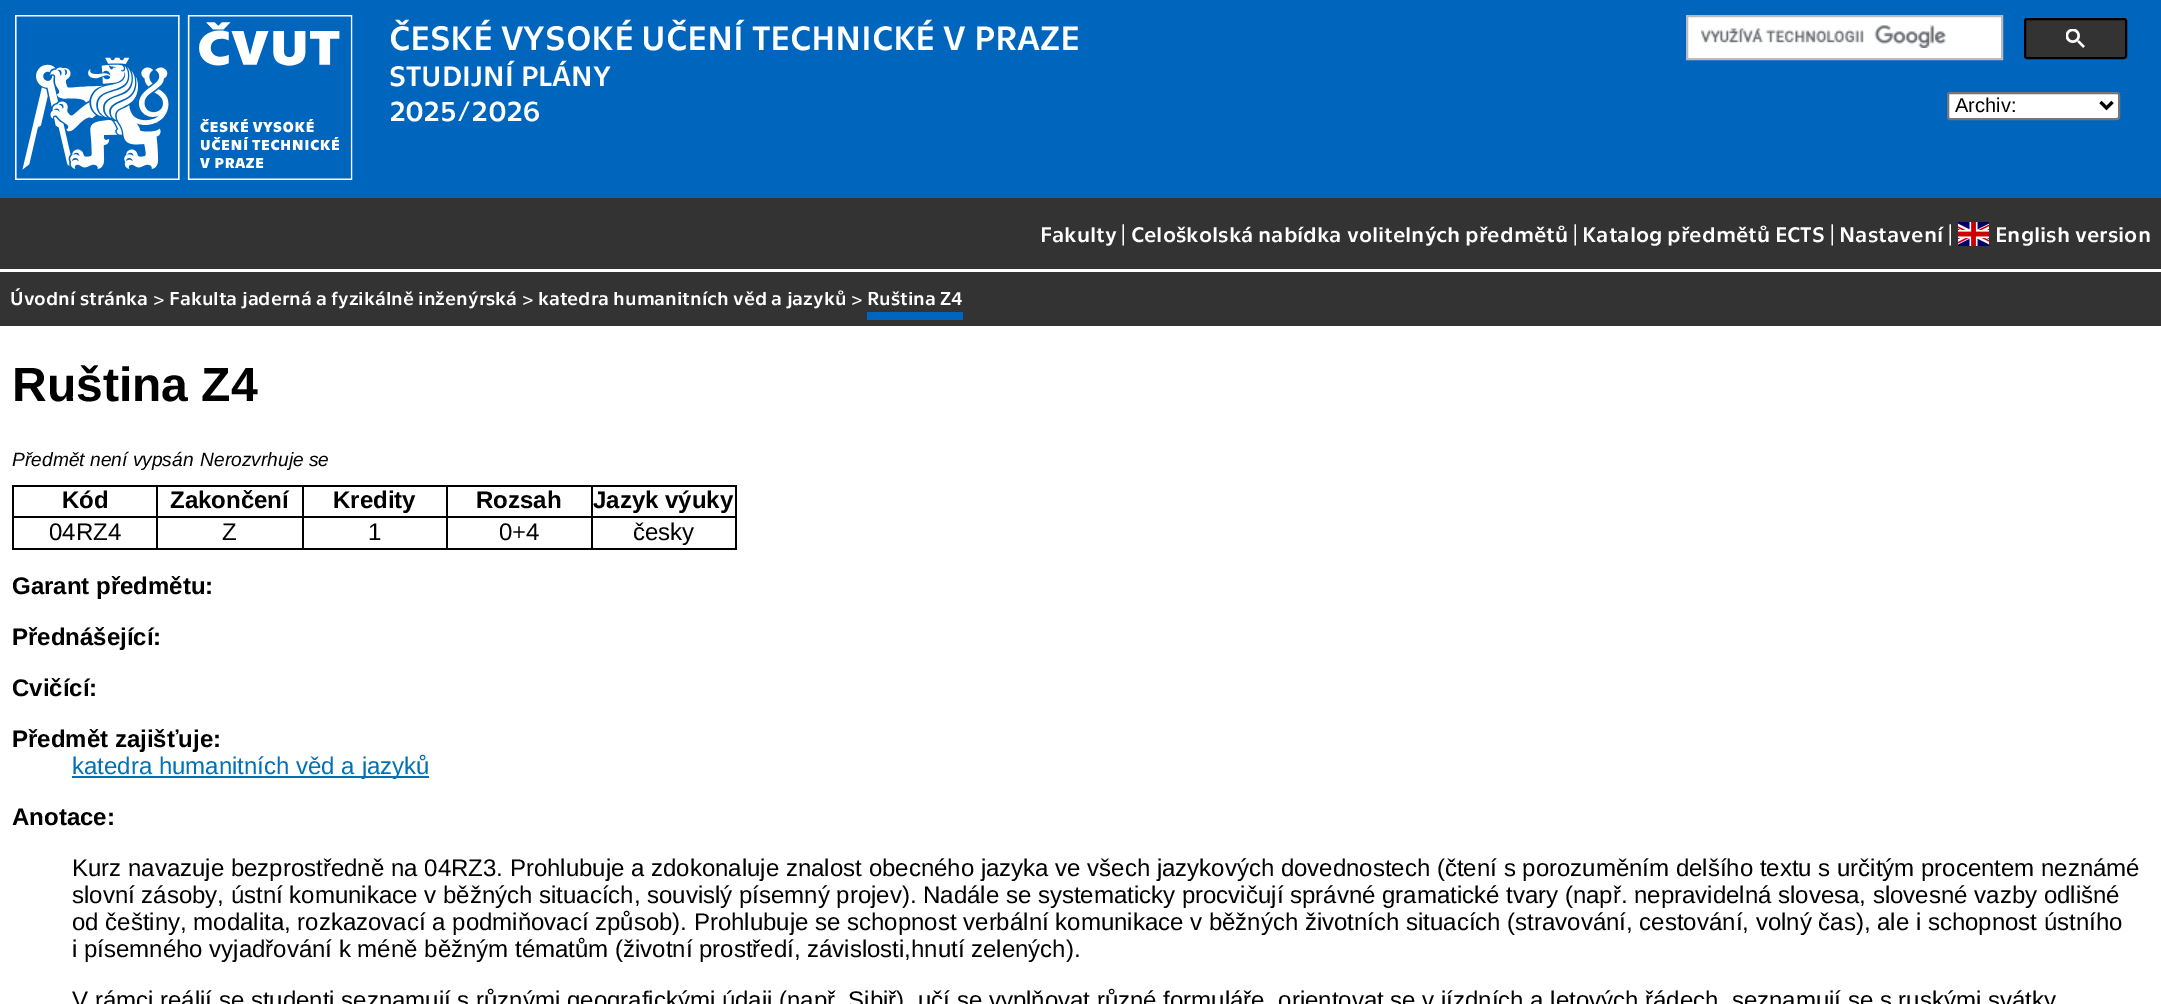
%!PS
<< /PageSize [2161 1004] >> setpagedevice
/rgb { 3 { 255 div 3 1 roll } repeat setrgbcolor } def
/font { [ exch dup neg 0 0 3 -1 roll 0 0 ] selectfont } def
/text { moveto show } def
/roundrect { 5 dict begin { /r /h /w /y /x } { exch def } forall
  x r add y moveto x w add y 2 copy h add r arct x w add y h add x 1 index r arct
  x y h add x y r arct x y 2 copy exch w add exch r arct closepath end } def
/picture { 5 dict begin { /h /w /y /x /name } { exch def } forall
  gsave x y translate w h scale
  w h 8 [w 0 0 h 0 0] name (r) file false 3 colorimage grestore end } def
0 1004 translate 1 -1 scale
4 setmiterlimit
255 255 255 rgb
0 0 2161 1004 rectfill
0 101 189 rgb
0 0 2161 198 rectfill
(img_01.rgb) 15 15 338 165 picture
255 255 255 rgb
1687 16 moveto 315 0 rlineto 0 43 rlineto -315 0 rlineto closepath gsave fill grestore
187 187 187 rgb
2 setlinewidth
stroke
(img_02.rgb) 1701 25 245 23 picture
51 51 51 rgb
2025 19 101 39 2 roundrect gsave fill grestore
0 0 0 rgb
stroke
(img_03.rgb) 2066 29 19 19 picture
255 255 255 rgb
1948 93 171 26 2 roundrect gsave fill grestore
118 118 118 rgb
stroke
0 0 0 rgb
3 setlinewidth
2100.5 102 moveto 6 6 rlineto 6 -6 rlineto stroke
51 51 51 rgb
0 198 2161 71 rectfill
(img_04.rgb) 1958 222 31 24 picture
0 272 2161 54 rectfill
0 101 189 rgb
867 312 96 8 rectfill
0 0 0 rgb
12 485 725 2 rectfill
735 485 2 64 rectfill
12 548 725 2 rectfill
12 485 2 64 rectfill
591 516 146 2 rectfill
591 516 2 33 rectfill
446 516 147 2 rectfill
446 516 2 33 rectfill
302 516 145 2 rectfill
302 516 2 33 rectfill
156 516 147 2 rectfill
156 516 2 33 rectfill
12 516 146 2 rectfill
156 485 2 33 rectfill
302 485 2 33 rectfill
446 485 2 33 rectfill
591 485 2 33 rectfill
0 113 179 rgb
72 776 357 2 rectfill
/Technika-Regular 34.6 font
255 255 255 rgb
(ČESKÉ VYSOKÉ UČENÍ TECHNICKÉ V PRAZE) 389 50 text
/Technika-Regular 28.75 font
(STUDIJNÍ PLÁNY) 389 86 text
(2025/2026) 389 121 text
/LiberationSans-Regular 20 font
0 0 0 rgb
(Archiv:) 1955 112 text
/Technika-Regular 21.6 font
255 255 255 rgb
(Fakulty | Celoškolská nabídka volitelných předmětů | Katalog předmětů ECTS | Nastavení |) 1040 242 text
(English version) 1995 242 text
/Technika-Regular 19.2 font
(Úvodní stránka > Fakulta jaderná a fyzikálně inženýrská > katedra humanitních věd a jazyků > Ruština Z4) 10 305 text
/LiberationSans-Bold 48 font
0 0 0 rgb
(Ruština Z4) 12 401 text
/LiberationSans-Italic 19.2 font
(Předmět není vypsán) 12 466 text
(Nerozvrhuje se) 200 466 text
/LiberationSans-Bold 24 font
(Kód) 62 508 text
(Zakončení) 170 508 text
(Kredity) 333 508 text
(Rozsah) 476 508 text
(Jazyk výuky) 593 508 text
/LiberationSans-Regular 24 font
(04RZ4) 49 540 text
(Z) 222 540 text
(1) 368 540 text
(0+4) 499 540 text
(česky) 633 540 text
/LiberationSans-Bold 24 font
(Garant předmětu:) 12 594 text
(Přednášející:) 12 645 text
(Cvičící:) 12 696 text
(Předmět zajišťuje:) 12 747 text
/LiberationSans-Regular 24 font
0 113 179 rgb
(katedra humanitních věd a jazyků) 72 774 text
/LiberationSans-Bold 24 font
0 0 0 rgb
(Anotace:) 12 825 text
/LiberationSans-Regular 24 font
(Kurz navazuje bezprostředně na 04RZ3. Prohlubuje a zdokonaluje znalost obecného jazyka ve všech jazykových dovednostech \(čtení s porozuměním delšího textu s určitým procentem neznámé) 72 876 text
(slovní zásoby, ústní komunikace v běžných situacích, souvislý písemný projev\). Nadále se systematicky procvičují správné gramatické tvary \(např. nepravidelná slovesa, slovesné vazby odlišné) 72 903 text
(od češtiny, modalita, rozkazovací a podmiňovací způsob\). Prohlubuje se schopnost verbální komunikace v běžných životních situacích \(stravování, cestování, volný čas\), ale i schopnost ústního) 72 930 text
(i písemného vyjadřování k méně běžným tématům \(životní prostředí, závislosti,hnutí zelených\).) 72 957 text
(V rámci reálií se studenti seznamují s různými geografickými údaji \(např. Sibiř\)) 72 1008 text
(učí se vyplňovat různé formuláře, orientovat se v jízdních a letových řádech, seznamují se s ruskými svátky) 918 1008 text
showpage
